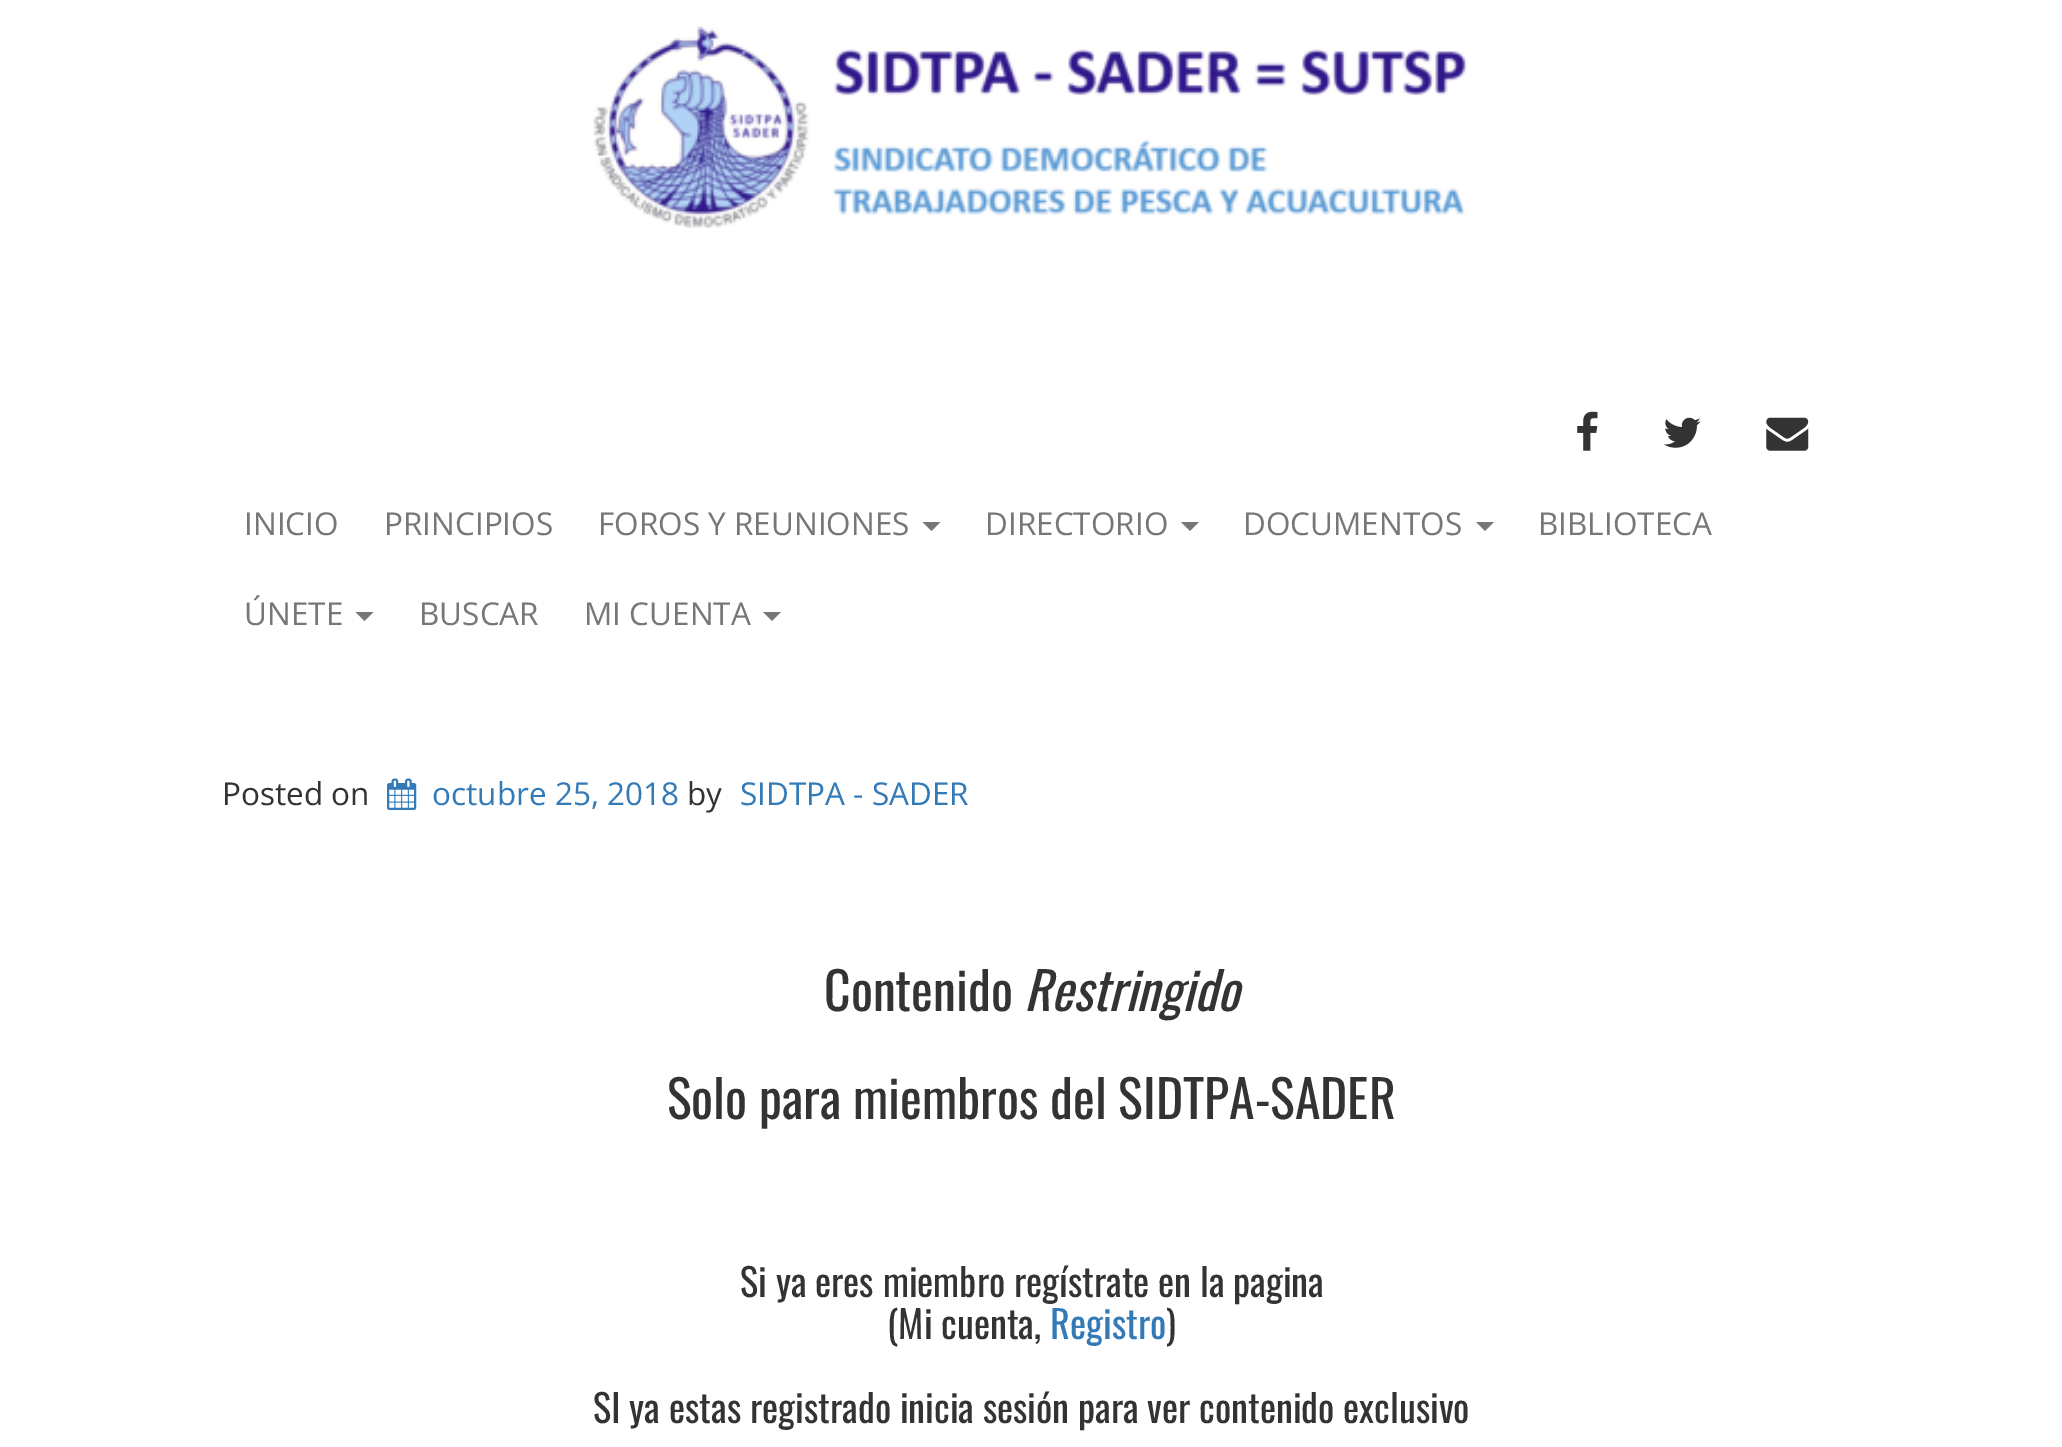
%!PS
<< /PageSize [2062 1447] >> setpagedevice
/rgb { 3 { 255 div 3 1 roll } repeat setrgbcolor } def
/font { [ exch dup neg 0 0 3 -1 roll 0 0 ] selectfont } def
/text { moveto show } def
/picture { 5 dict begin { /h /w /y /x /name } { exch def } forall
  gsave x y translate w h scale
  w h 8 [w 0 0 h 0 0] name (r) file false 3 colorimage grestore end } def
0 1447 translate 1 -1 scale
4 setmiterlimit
255 255 255 rgb
0 0 2062 1447 rectfill
(img_01.rgb) 593 26 875 202 picture
(img_02.rgb) 1577 411 21 40 picture
(img_03.rgb) 1664 417 37 31 picture
(img_04.rgb) 1766 417 43 34 picture
119 119 119 rgb
922.5 522 moveto 18 0 rlineto -9 9 rlineto closepath fill
1181 522 moveto 18 0 rlineto -9 9 rlineto closepath fill
1476 522 moveto 18 0 rlineto -9 9 rlineto closepath fill
355.5 612 moveto 18 0 rlineto -9 9 rlineto closepath fill
763 612 moveto 18 0 rlineto -9 9 rlineto closepath fill
(img_05.rgb) 387 778 30 32 picture
/OpenSans-Regular 31.5 font
(INICIO) 244 535 text
(PRINCIPIOS) 384 535 text
(FOROS Y REUNIONES) 598 535 text
(DIRECTORIO) 985 535 text
(DOCUMENTOS) 1243 535 text
(BIBLIOTECA) 1538 535 text
(ÚNETE) 244 625 text
(BUSCAR) 419 625 text
(MI CUENTA) 584 625 text
51 51 51 rgb
(Posted on) 222 805 text
51 122 183 rgb
(octubre 25, 2018) 432 805 text
51 51 51 rgb
(by) 687 805 text
51 122 183 rgb
(SIDTPA - SADER) 740 805 text
/Oswald-Regular 51.75 font
51 51 51 rgb
(Contenido) 824 1011 text
/Oswald-Italic 51.75 font
(Restringido) 1024 1011 text
/Oswald-Regular 51.75 font
(Solo para miembros del SIDTPA-SADER) 667 1119 text
/Oswald-Regular 38.25 font
(Si ya eres miembro regístrate en la pagina) 740 1297 text
(\(Mi cuenta,) 887 1339 text
51 122 183 rgb
(Registro) 1050 1339 text
51 51 51 rgb
(\)) 1166 1339 text
(SI ya estas registrado inicia sesión para ver contenido exclusivo) 593 1423 text
showpage
